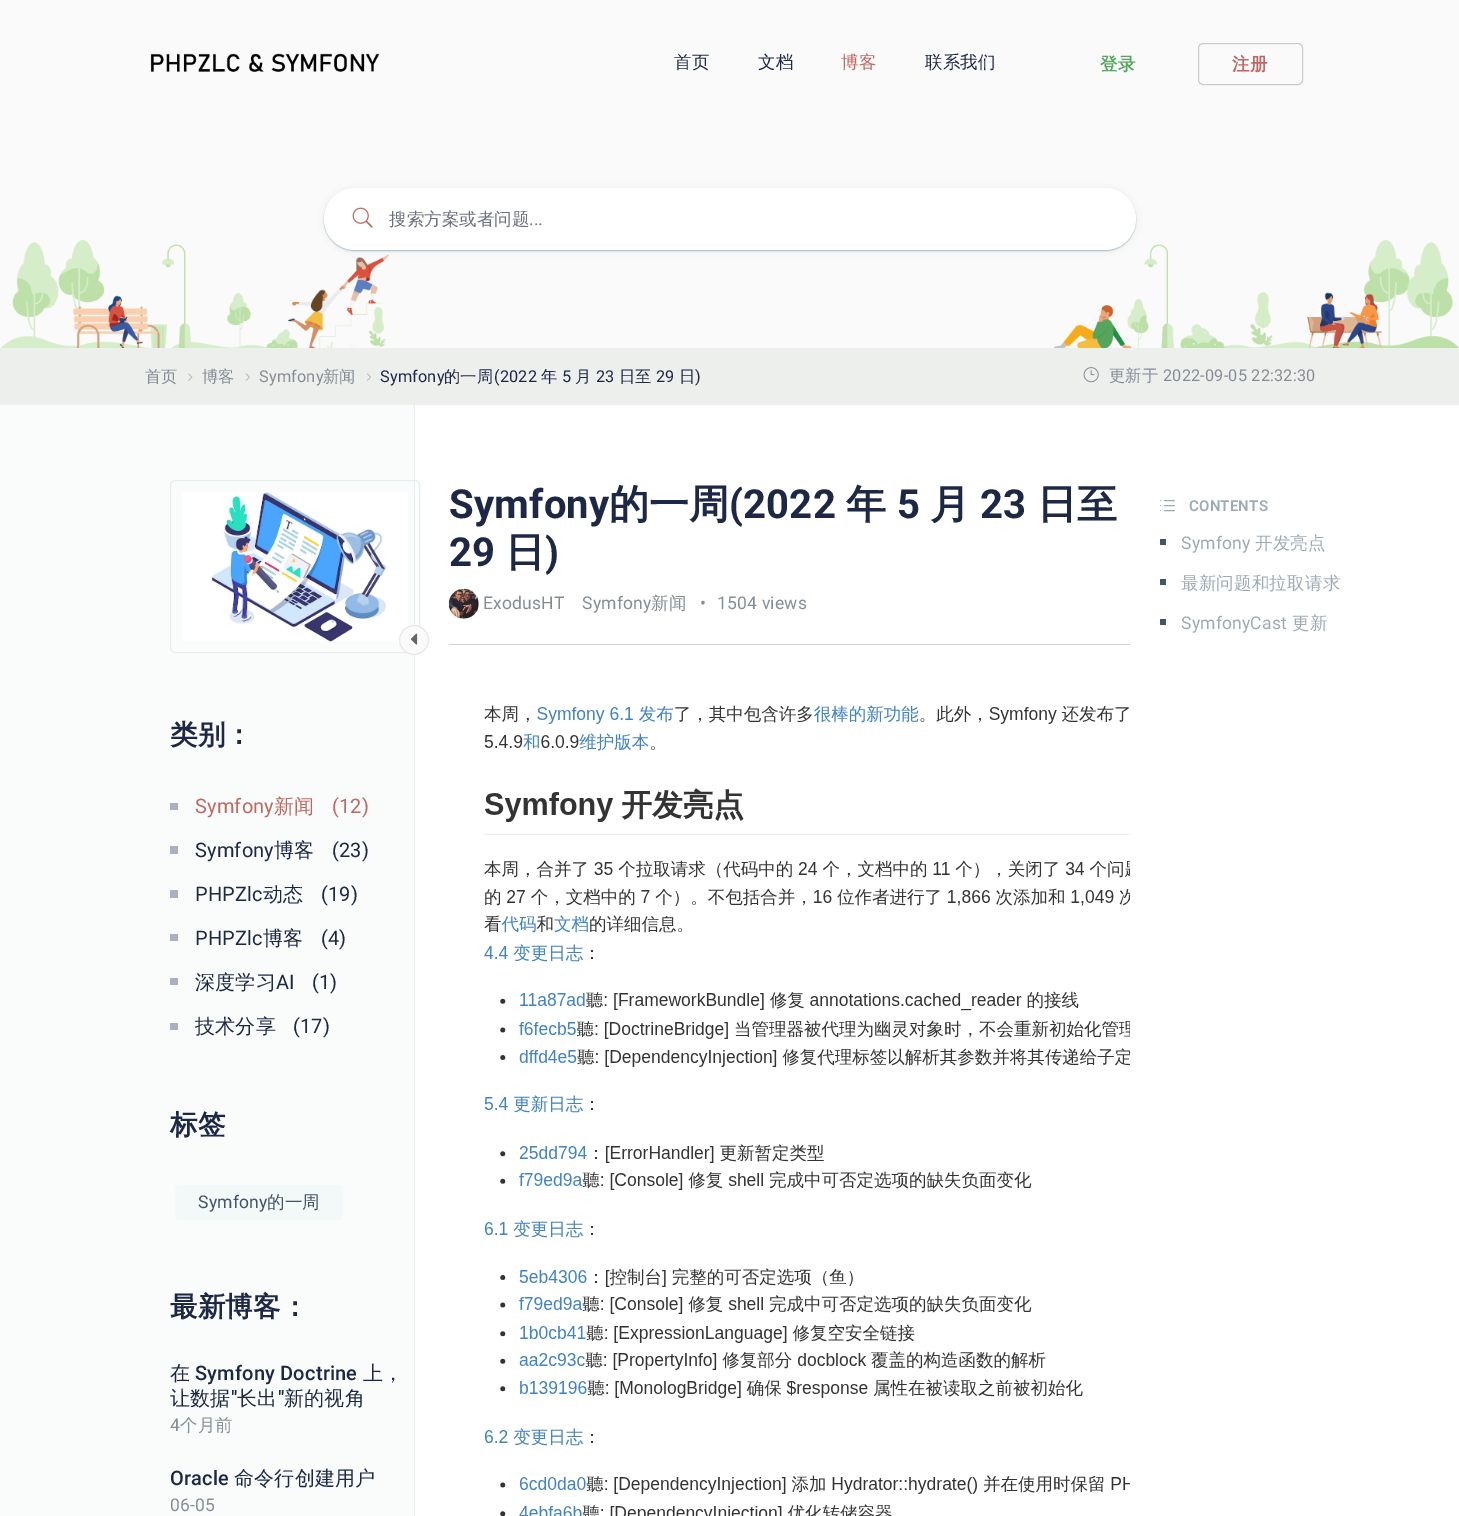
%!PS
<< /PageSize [1459 1516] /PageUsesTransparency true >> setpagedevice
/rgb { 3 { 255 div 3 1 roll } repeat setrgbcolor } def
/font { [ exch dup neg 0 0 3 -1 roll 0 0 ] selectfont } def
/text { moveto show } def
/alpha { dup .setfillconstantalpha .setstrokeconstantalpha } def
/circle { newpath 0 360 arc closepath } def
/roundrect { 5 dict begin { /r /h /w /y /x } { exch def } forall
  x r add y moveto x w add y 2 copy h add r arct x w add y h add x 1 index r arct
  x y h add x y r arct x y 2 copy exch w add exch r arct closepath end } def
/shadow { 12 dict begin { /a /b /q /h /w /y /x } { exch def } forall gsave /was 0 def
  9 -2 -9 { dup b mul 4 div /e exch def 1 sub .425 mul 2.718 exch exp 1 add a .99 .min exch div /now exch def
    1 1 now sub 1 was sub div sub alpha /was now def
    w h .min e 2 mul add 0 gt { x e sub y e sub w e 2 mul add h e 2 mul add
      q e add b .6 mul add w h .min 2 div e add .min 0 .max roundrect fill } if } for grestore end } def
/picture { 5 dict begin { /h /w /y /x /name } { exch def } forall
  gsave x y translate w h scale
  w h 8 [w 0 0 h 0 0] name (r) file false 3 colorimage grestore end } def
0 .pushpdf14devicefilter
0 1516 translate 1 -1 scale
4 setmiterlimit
255 255 255 rgb
0 0 1459 1516 rectfill
250 250 250 rgb
0 0 1459 348 rectfill
(img_01.rgb) 150 53 229 19 picture
200 204 208 rgb
1198.5 43.5 104 41 4.5 roundrect stroke
(img_02.rgb) 0 240 1459 108 picture
60 64 67 rgb
324 189 812 62 31 3 0.1 shadow
11 80 115 rgb
324 189 812 62 31 0.5 0.3 shadow
255 255 255 rgb
324 188 812 62 31 roundrect fill
(img_03.rgb) 352 207 21 21 picture
237 239 236 rgb
0 348 1459 57 rectfill
(img_04.rgb) 188 373 5 8 picture
(img_05.rgb) 245 373 5 8 picture
(img_06.rgb) 367 373 4 8 picture
(img_07.rgb) 1083 367 16 16 picture
(img_08.rgb) 448 588 31 31 picture
208 212 217 rgb
449 644 681 1 rectfill
(img_09.rgb) 484 705 646 811 picture
250 252 252 rgb
0 405 414 1111 rectfill
230 237 240 rgb
414 405 1 1111 rectfill
229 237 239 rgb
170.5 480.5 249 172 4.5 roundrect stroke
(img_12.rgb) 182 492 226 150 picture
250 250 250 rgb
414 640 14.5 circle gsave fill grestore
232 232 232 rgb
stroke
(img_10.rgb) 410 633 8 12 picture
(img_11.rgb) 1160 500 15 12 picture
66 84 102 rgb
1160 539 6 6 rectfill
1160 579 6 6 rectfill
1160 619 6 6 rectfill
170 176 192 rgb
170 803 8 7 rectfill
170 846 8 8 rectfill
170 890 8 8 rectfill
170 934 8 7 rectfill
170 978 8 7 rectfill
170 1023 8 7 rectfill
243 248 249 rgb
175 1185 168 35 5 roundrect fill
/WenQuanYiZenHei-Medium 17.5 font
29 39 70 rgb
674 68 moveto 0.2 0 (首页) ashow
758 68 moveto 0.2 0 (文档) ashow
191 103 96 rgb
841 68 moveto 0.2 0 (博客) ashow
29 39 70 rgb
925 68 moveto 0.2 0 (联系我们) ashow
/WenQuanYiZenHei-Bold 17.5 font
85 165 92 rgb
1100 70 moveto 0.2 0 (登录) ashow
191 103 96 rgb
1232 70 moveto 0.2 0 (注册) ashow
/WenQuanYiZenHei-Medium 17.5 font
107 112 127 rgb
(搜索方案或者问题) 389 225 text
/Roboto-Regular 17.5 font
(...) 529 225 text
/WenQuanYiZenHei-Medium 16.25 font
132 141 149 rgb
145 382 moveto 0.2 0 (首页) ashow
202 382 moveto 0.2 0 (博客) ashow
/Roboto-Regular 16.25 font
259 382 moveto 0.2 0 (Symfony) ashow
/WenQuanYiZenHei-Medium 16.25 font
323 382 moveto 0.2 0 (新闻) ashow
/Roboto-Regular 16.25 font
29 39 70 rgb
380 382 moveto 0.2 0 (Symfony) ashow
/WenQuanYiZenHei-Medium 16.25 font
444 382 moveto 0.2 0 (的一周) ashow
/Roboto-Regular 16.25 font
494 382 moveto 0.2 0 (\(2022) ashow
/WenQuanYiZenHei-Medium 16.25 font
541 382 moveto 0.2 0 (年) ashow
/Roboto-Regular 16.25 font
562 382 moveto 0.2 0 (5) ashow
/WenQuanYiZenHei-Medium 16.25 font
575 382 moveto 0.2 0 (月) ashow
/Roboto-Regular 16.25 font
596 382 moveto 0.2 0 (23) ashow
/WenQuanYiZenHei-Medium 16.25 font
619 382 moveto 0.2 0 (日至) ashow
/Roboto-Regular 16.25 font
656 382 moveto 0.2 0 (29) ashow
/WenQuanYiZenHei-Medium 16.25 font
679 382 moveto 0.2 0 (日) ashow
/Roboto-Regular 16.25 font
695 382 moveto 0.2 0 (\)) ashow
/WenQuanYiZenHei-Medium 16.25 font
132 141 149 rgb
1109 381 moveto 0.2 0 (更新于) ashow
/Roboto-Regular 16.25 font
1163 381 moveto 0.2 0 (2022-09-05 22:32:30) ashow
/Roboto-Bold 40 font
29 39 70 rgb
449 518 moveto 0.2 0 (Symfony) ashow
/WenQuanYiZenHei-Bold 40 font
609 518 moveto 0.2 0 (的一周) ashow
/Roboto-Bold 40 font
729 518 moveto 0.2 0 (\(2022) ashow
/WenQuanYiZenHei-Bold 40 font
846 518 moveto 0.2 0 (年) ashow
/Roboto-Bold 40 font
897 518 moveto 0.2 0 (5) ashow
/WenQuanYiZenHei-Bold 40 font
930 518 moveto 0.2 0 (月) ashow
/Roboto-Bold 40 font
980 518 moveto 0.2 0 (23) ashow
/WenQuanYiZenHei-Bold 40 font
1037 518 moveto 0.2 0 (日至) ashow
/Roboto-Bold 40 font
449 566 moveto 0.2 0 (29) ashow
/WenQuanYiZenHei-Bold 40 font
505 566 moveto 0.2 0 (日) ashow
/Roboto-Bold 40 font
545 566 moveto 0.2 0 (\)) ashow
/Roboto-Regular 17.5 font
132 141 149 rgb
483 609 moveto 0.2 0 (ExodusHT) ashow
582 609 moveto 0.2 0 (Symfony) ashow
/WenQuanYiZenHei-Medium 17.5 font
651 609 moveto 0.2 0 (新闻) ashow
/Roboto-Regular 17.5 font
700 609 moveto 0.2 0 (•) ashow
717 609 moveto 0.2 0 (1504 views) ashow
/Roboto-SemiBold 15 font
157 170 182 rgb
1189 511 moveto 0.2 0 (CONTENTS) ashow
/Roboto-Regular 17.5 font
1181 549 moveto 0.2 0 (Symfony) ashow
/WenQuanYiZenHei-Medium 17.5 font
1255 549 moveto 0.2 0 (开发亮点) ashow
1181 589 moveto 0.2 0 (最新问题和拉取请求) ashow
/Roboto-Regular 17.5 font
1181 629 moveto 0.2 0 (SymfonyCast) ashow
/WenQuanYiZenHei-Medium 17.5 font
1292 629 moveto 0.2 0 (更新) ashow
/WenQuanYiZenHei-Bold 27.5 font
29 39 70 rgb
170 744 moveto 0.2 0 (类别：) ashow
/Roboto-Regular 20 font
191 103 96 rgb
195 813 moveto 0.2 0 (Symfony) ashow
/WenQuanYiZenHei-Medium 20 font
274 813 moveto 0.2 0 (新闻) ashow
/Roboto-Regular 20 font
332 813 moveto 0.2 0 (\(12\)) ashow
29 39 70 rgb
195 857 moveto 0.2 0 (Symfony) ashow
/WenQuanYiZenHei-Medium 20 font
274 857 moveto 0.2 0 (博客) ashow
/Roboto-Regular 20 font
332 857 moveto 0.2 0 (\(23\)) ashow
195 901 moveto 0.2 0 (PHPZlc) ashow
/WenQuanYiZenHei-Medium 20 font
263 901 moveto 0.2 0 (动态) ashow
/Roboto-Regular 20 font
321 901 moveto 0.2 0 (\(19\)) ashow
195 945 moveto 0.2 0 (PHPZlc) ashow
/WenQuanYiZenHei-Medium 20 font
263 945 moveto 0.2 0 (博客) ashow
/Roboto-Regular 20 font
321 945 moveto 0.2 0 (\(4\)) ashow
/WenQuanYiZenHei-Medium 20 font
195 989 moveto 0.2 0 (深度学习) ashow
/Roboto-Regular 20 font
276 989 moveto 0.2 0 (AI) ashow
312 989 moveto 0.2 0 (\(1\)) ashow
/WenQuanYiZenHei-Medium 20 font
195 1033 moveto 0.2 0 (技术分享) ashow
/Roboto-Regular 20 font
293 1033 moveto 0.2 0 (\(17\)) ashow
/WenQuanYiZenHei-Bold 27.5 font
170 1134 moveto 0.2 0 (标签) ashow
/Roboto-Regular 17.5 font
66 84 102 rgb
198 1208 moveto 0.2 0 (Symfony) ashow
/WenQuanYiZenHei-Medium 17.5 font
267 1208 moveto 0.2 0 (的一周) ashow
/WenQuanYiZenHei-Bold 27.5 font
29 39 70 rgb
170 1316 moveto 0.2 0 (最新博客：) ashow
/WenQuanYiZenHei-Medium 20 font
170 1380 moveto 0.2 0 (在) ashow
/Roboto-Medium 20 font
195 1380 moveto 0.2 0 (Symfony Doctrine) ashow
/WenQuanYiZenHei-Medium 20 font
363 1380 moveto 0.2 0 (上，) ashow
170 1405 moveto 0.2 0 (让数据) ashow
/Roboto-Medium 20 font
231 1405 moveto 0.2 0 (") ashow
/WenQuanYiZenHei-Medium 20 font
237 1405 moveto 0.2 0 (长出) ashow
/Roboto-Medium 20 font
278 1405 moveto 0.2 0 (") ashow
/WenQuanYiZenHei-Medium 20 font
284 1405 moveto 0.2 0 (新的视角) ashow
/Roboto-Regular 17.5 font
132 141 149 rgb
170 1431 moveto 0.2 0 (4) ashow
/WenQuanYiZenHei-Medium 17.5 font
180 1431 moveto 0.2 0 (个月前) ashow
/Roboto-Medium 20 font
29 39 70 rgb
170 1485 moveto 0.2 0 (Oracle) ashow
/WenQuanYiZenHei-Medium 20 font
234 1485 moveto 0.2 0 (命令行创建用户) ashow
/Roboto-Regular 17.5 font
132 141 149 rgb
170 1511 moveto 0.2 0 (06-05) ashow
.poppdf14devicefilter showpage
